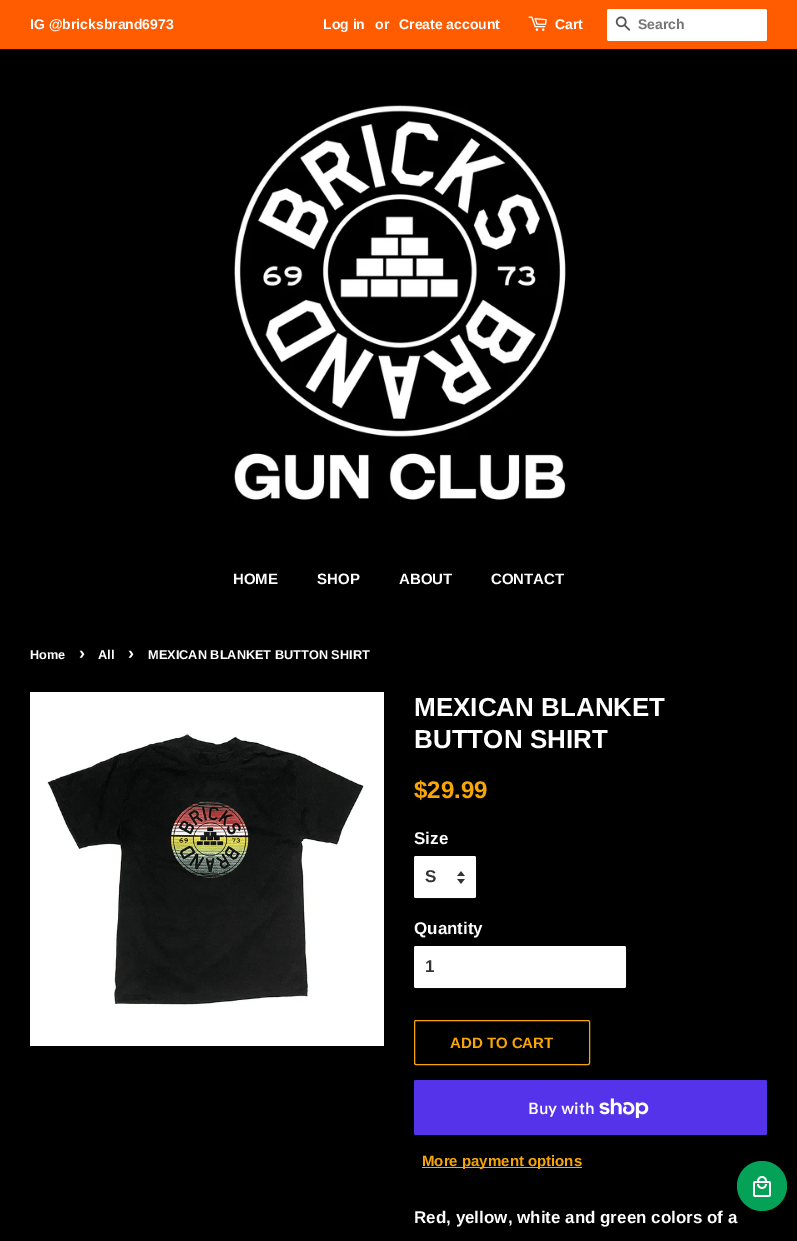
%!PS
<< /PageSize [797 1241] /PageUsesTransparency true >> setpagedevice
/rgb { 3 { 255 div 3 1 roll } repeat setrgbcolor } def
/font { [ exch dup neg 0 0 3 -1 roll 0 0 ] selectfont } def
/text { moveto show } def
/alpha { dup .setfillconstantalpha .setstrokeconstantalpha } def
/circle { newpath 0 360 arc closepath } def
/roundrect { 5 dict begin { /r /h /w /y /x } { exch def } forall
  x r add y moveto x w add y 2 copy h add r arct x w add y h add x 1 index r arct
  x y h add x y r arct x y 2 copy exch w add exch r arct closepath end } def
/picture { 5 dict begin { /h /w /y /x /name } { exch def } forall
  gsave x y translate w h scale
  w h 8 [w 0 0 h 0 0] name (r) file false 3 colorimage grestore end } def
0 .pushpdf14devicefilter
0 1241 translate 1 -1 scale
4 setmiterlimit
0 0 0 rgb
0 0 797 1241 rectfill
255 91 0 rgb
0 0 797 49 rectfill
(img_01.rgb) 528 16 19 15 picture
255 255 255 rgb
607 9 160 32 2 roundrect fill
(img_02.rgb) 615 16 16 15 picture
(img_03.rgb) 234 105 332 397 picture
(img_04.rgb) 30 692 354 354 picture
414 856 62 42 2 roundrect fill
(img_05.rgb) 457 871 8 13 picture
0.15 alpha
414.5 856.5 61 41 1.5 roundrect stroke
1 alpha
414 946 212 42 2 roundrect fill
0.15 alpha
414.5 946.5 211 41 1.5 roundrect stroke
1 alpha
247 166 6 rgb
414.5 1020.5 175 44 1.5 roundrect stroke
84 51 235 rgb
414 1080 353 55 2 roundrect fill
(img_06.rgb) 599 1098 50 20 picture
247 166 6 rgb
422 1167 160 1 rectfill
3 162 86 rgb
762 1186 25 circle fill
(img_07.rgb) 753 1176 18 21 picture
/LiberationSans-Bold 14 font
255 255 255 rgb
(IG @bricksbrand6973) 30 29 text
(Log in) 323 29 text
(or) 375 29 text
(Create account) 399 29 text
(Cart) 555 29 text
117 117 117 rgb
(Search) 638 29 text
/LiberationSans-Bold 15 font
255 255 255 rgb
(HOME) 233 584 text
(SHOP) 317 584 text
(ABOUT) 399 584 text
(CONTACT) 491 584 text
/LiberationSans-Bold 12.75 font
(Home) 30 659 text
/LiberationSans-Bold 18 font
(›) 79 659 text
/LiberationSans-Bold 12.75 font
(All) 98 659 text
/LiberationSans-Bold 18 font
(›) 128 659 text
/LiberationSans-Bold 12.75 font
(MEXICAN BLANKET BUTTON SHIRT) 148 659 text
/LiberationSans-Bold 26 font
(MEXICAN BLANKET) 414 716 text
(BUTTON SHIRT) 414 748 text
/LiberationSans-Bold 24 font
247 166 6 rgb
($29.99) 414 798 text
/LiberationSans-Bold 17 font
255 255 255 rgb
(Size) 414 844 text
51 51 51 rgb
(S) 425 882 text
255 255 255 rgb
(Quantity) 414 934 text
51 51 51 rgb
(1) 425 972 text
/LiberationSans-Bold 15 font
247 166 6 rgb
(ADD TO CART) 450 1048 text
/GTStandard-SemiBold 16 font
255 255 255 rgb
(Buy with) 528 1114 text
/LiberationSans-Bold 15 font
247 166 6 rgb
(More payment options) 422 1166 text
/LiberationSans-Bold 17 font
255 255 255 rgb
(Red, yellow, white and green colors of a) 414 1223 text
.poppdf14devicefilter showpage
